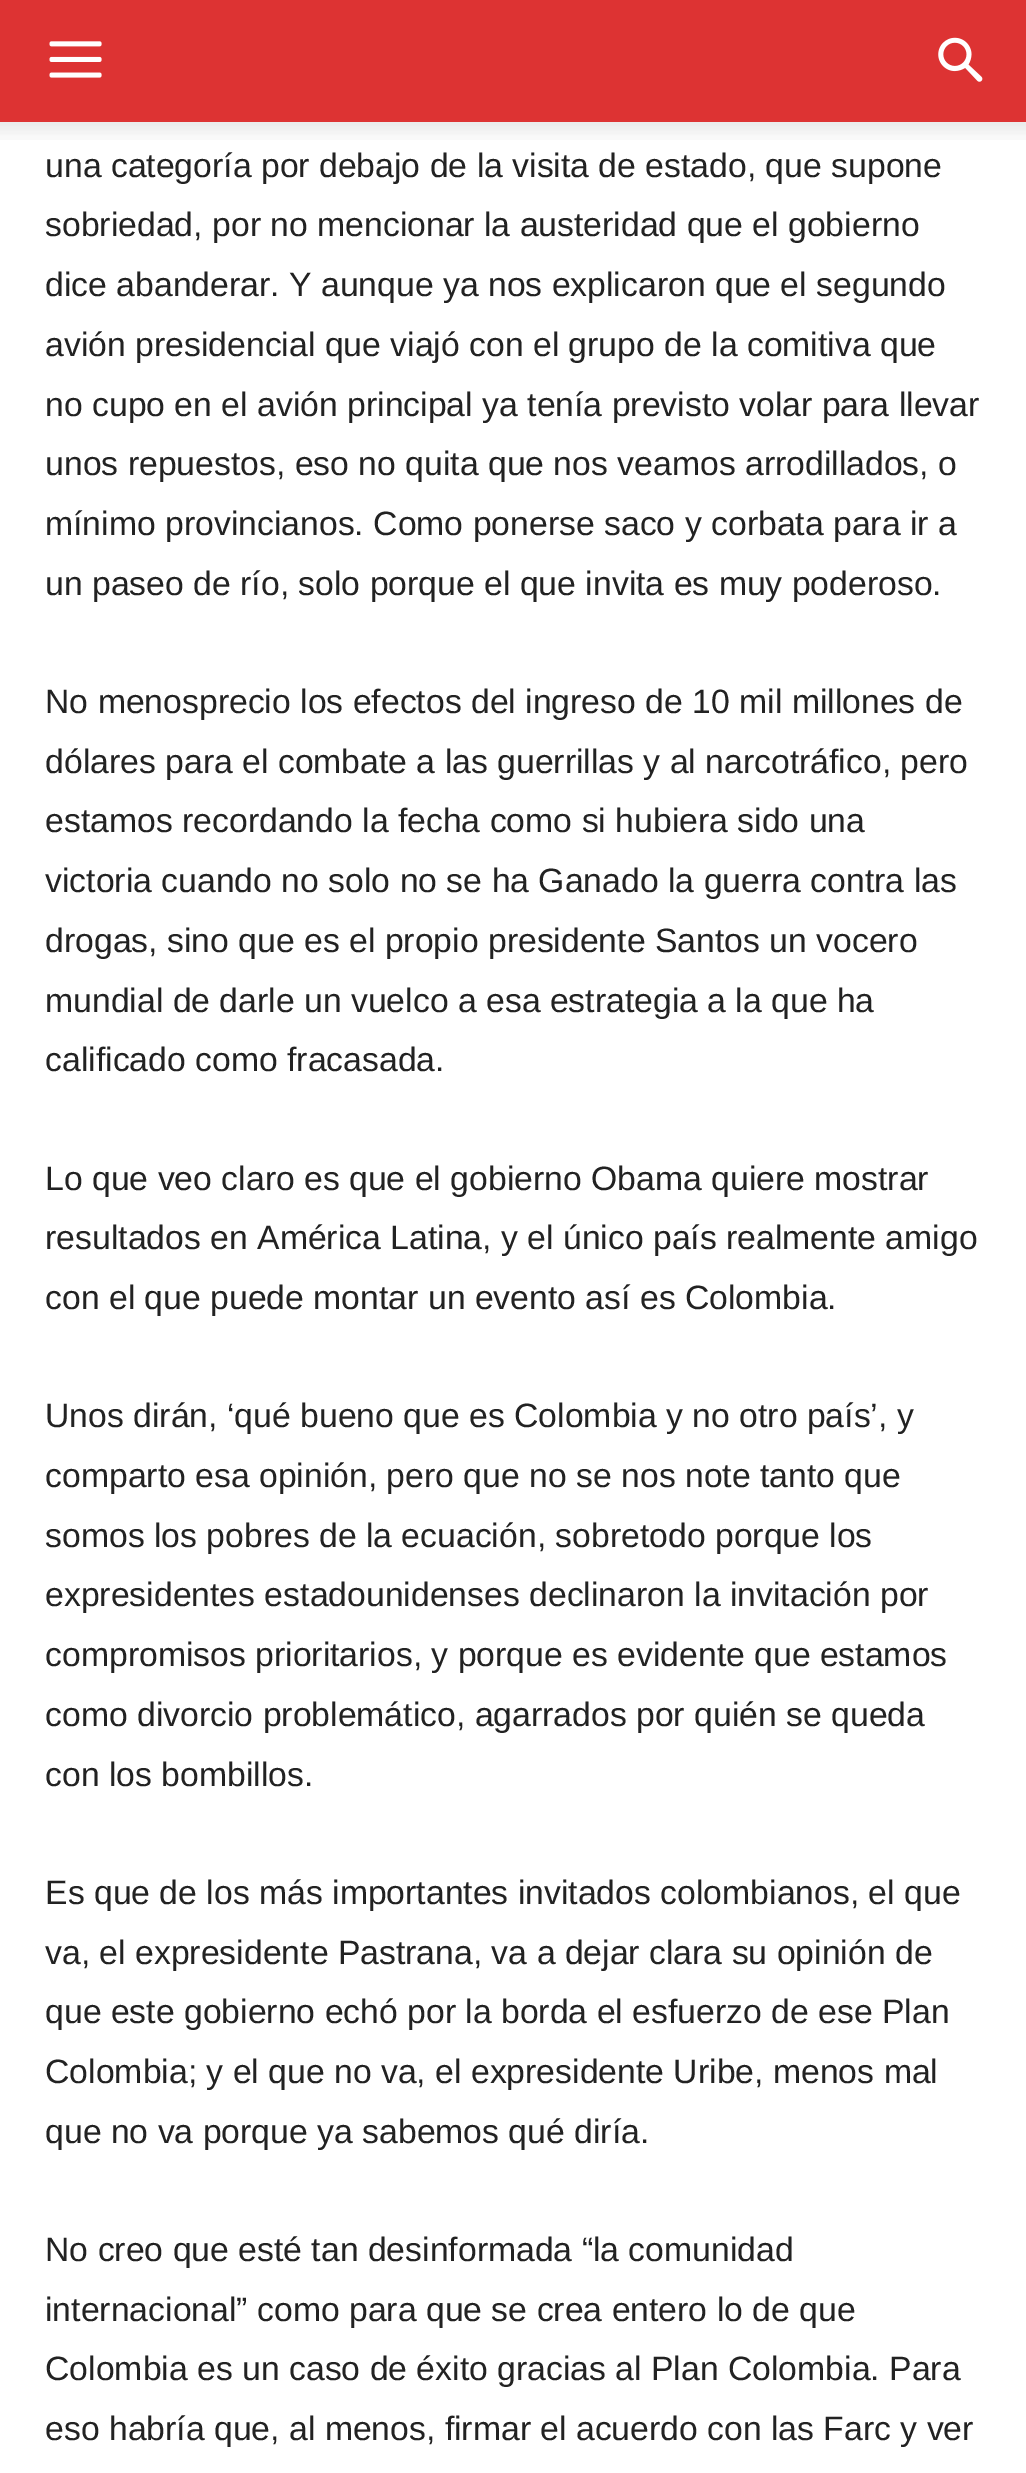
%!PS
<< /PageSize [1026 2473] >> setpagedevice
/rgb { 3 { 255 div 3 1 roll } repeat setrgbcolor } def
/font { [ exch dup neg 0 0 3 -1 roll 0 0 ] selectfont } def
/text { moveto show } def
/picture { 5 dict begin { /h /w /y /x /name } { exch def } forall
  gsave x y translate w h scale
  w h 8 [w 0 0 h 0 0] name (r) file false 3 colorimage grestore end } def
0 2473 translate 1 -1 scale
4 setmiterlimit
255 255 255 rgb
0 0 1026 2473 rectfill
221 51 51 rgb
0 0 1026 122 rectfill
(img_01.rgb) 49 41 53 37 picture
(img_02.rgb) 938 37 45 45 picture
(img_03.rgb) 0 122 1026 18 picture
/LiberationSans-Regular 33.75 font
34 34 34 rgb
(una categoría por debajo de la visita de estado, que supone) 45 177 text
(sobriedad, por no mencionar la austeridad que el gobierno) 45 236 text
(dice abanderar. Y aunque ya nos explicaron que el segundo) 45 296 text
(avión presidencial que viajó con el grupo de la comitiva que) 45 356 text
(no cupo en el avión principal ya tenía previsto volar para llevar) 45 416 text
(unos repuestos, eso no quita que nos veamos arrodillados, o) 45 475 text
(mínimo provincianos. Como ponerse saco y corbata para ir a) 45 535 text
(un paseo de río, solo porque el que invita es muy poderoso.) 45 595 text
(No menosprecio los efectos del ingreso de 10 mil millones de) 45 713 text
(dólares para el combate a las guerrillas y al narcotráfico, pero) 45 773 text
(estamos recordando la fecha como si hubiera sido una) 45 832 text
(victoria cuando no solo no se ha Ganado la guerra contra las) 45 892 text
(drogas, sino que es el propio presidente Santos un vocero) 45 952 text
(mundial de darle un vuelco a esa estrategia a la que ha) 45 1012 text
(calificado como fracasada.) 45 1071 text
(Lo que veo claro es que el gobierno Obama quiere mostrar) 45 1190 text
(resultados en América Latina, y el único país realmente amigo) 45 1249 text
(con el que puede montar un evento así es Colombia.) 45 1309 text
(Unos dirán, ‘qué bueno que es Colombia y no otro país’, y) 45 1427 text
(comparto esa opinión, pero que no se nos note tanto que) 45 1487 text
(somos los pobres de la ecuación, sobretodo porque los) 45 1547 text
(expresidentes estadounidenses declinaron la invitación por) 45 1606 text
(compromisos prioritarios, y porque es evidente que estamos) 45 1666 text
(como divorcio problemático, agarrados por quién se queda) 45 1726 text
(con los bombillos.) 45 1786 text
(Es que de los más importantes invitados colombianos, el que) 45 1904 text
(va, el expresidente Pastrana, va a dejar clara su opinión de) 45 1964 text
(que este gobierno echó por la borda el esfuerzo de ese Plan) 45 2023 text
(Colombia; y el que no va, el expresidente Uribe, menos mal) 45 2083 text
(que no va porque ya sabemos qué diría.) 45 2143 text
(No creo que esté tan desinformada “la comunidad) 45 2261 text
(internacional” como para que se crea entero lo de que) 45 2321 text
(Colombia es un caso de éxito gracias al Plan Colombia. Para) 45 2380 text
(eso habría que, al menos, firmar el acuerdo con las Farc y ver) 45 2440 text
showpage
